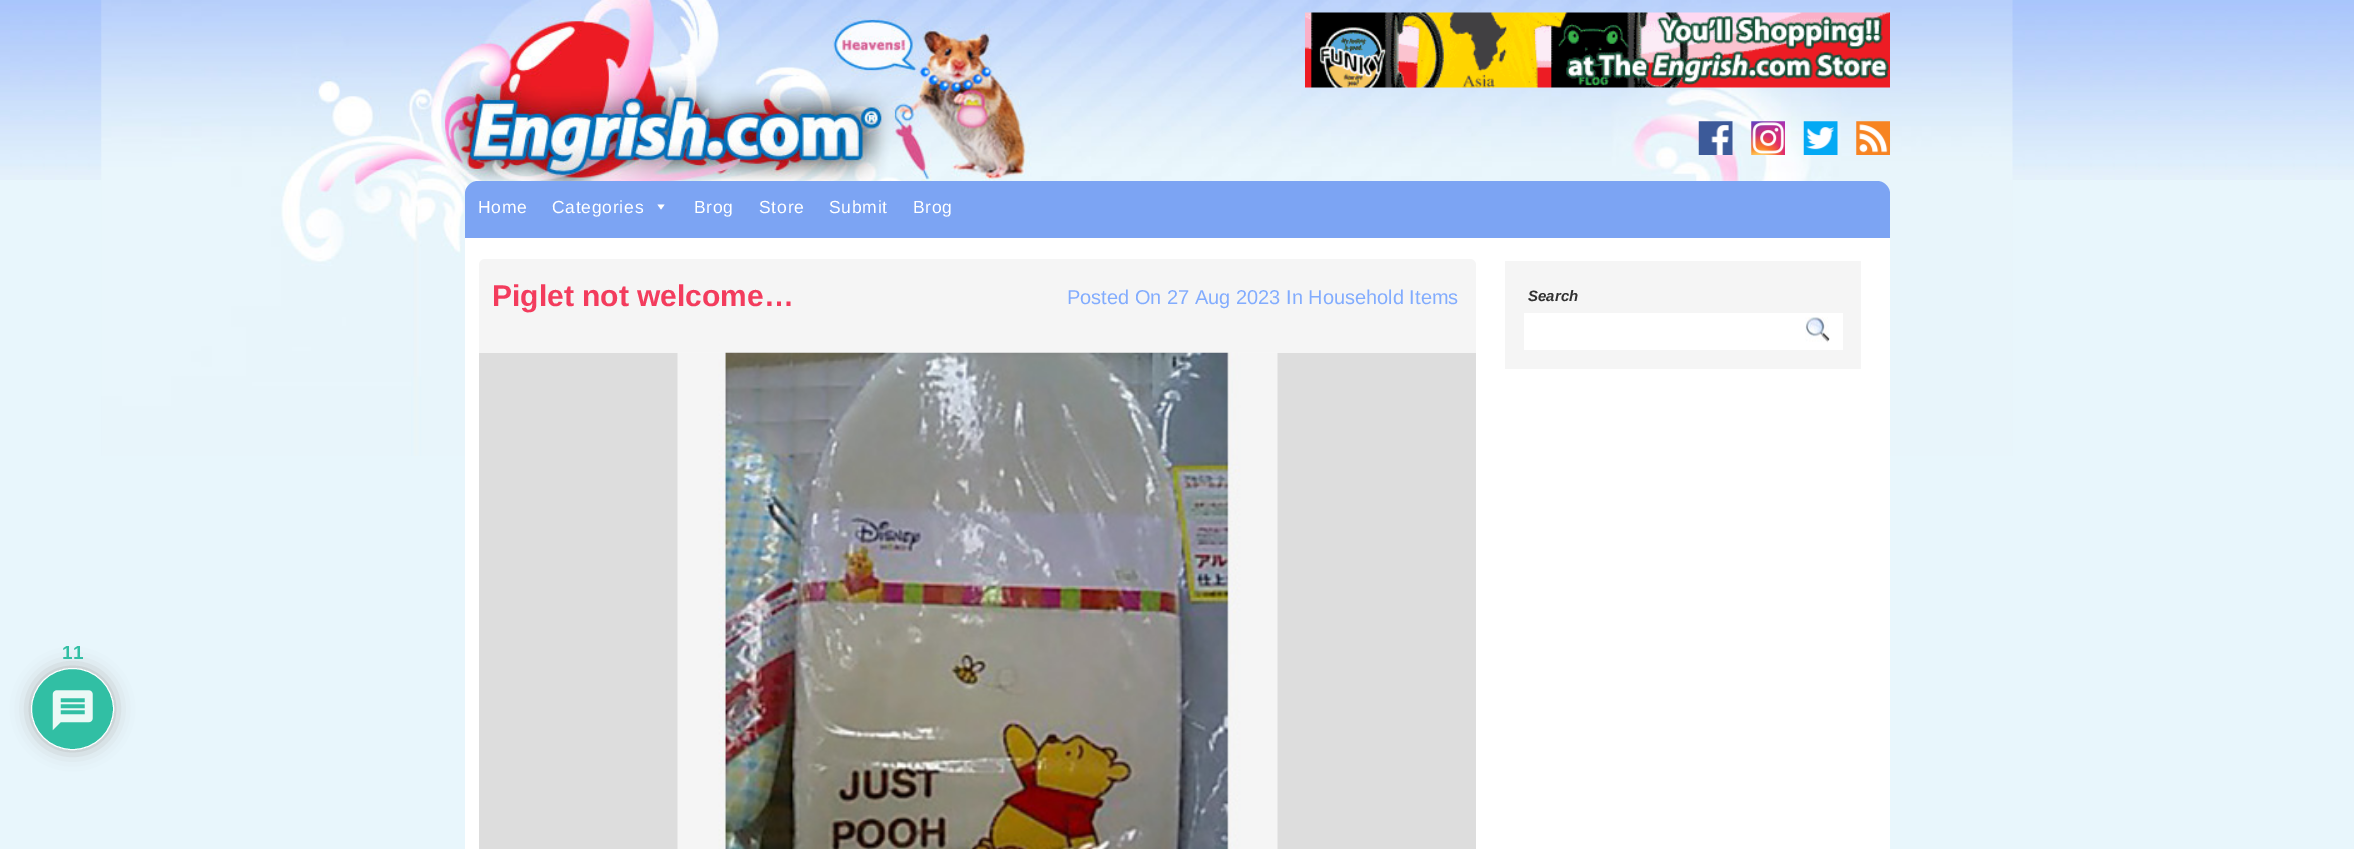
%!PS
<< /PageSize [2354 849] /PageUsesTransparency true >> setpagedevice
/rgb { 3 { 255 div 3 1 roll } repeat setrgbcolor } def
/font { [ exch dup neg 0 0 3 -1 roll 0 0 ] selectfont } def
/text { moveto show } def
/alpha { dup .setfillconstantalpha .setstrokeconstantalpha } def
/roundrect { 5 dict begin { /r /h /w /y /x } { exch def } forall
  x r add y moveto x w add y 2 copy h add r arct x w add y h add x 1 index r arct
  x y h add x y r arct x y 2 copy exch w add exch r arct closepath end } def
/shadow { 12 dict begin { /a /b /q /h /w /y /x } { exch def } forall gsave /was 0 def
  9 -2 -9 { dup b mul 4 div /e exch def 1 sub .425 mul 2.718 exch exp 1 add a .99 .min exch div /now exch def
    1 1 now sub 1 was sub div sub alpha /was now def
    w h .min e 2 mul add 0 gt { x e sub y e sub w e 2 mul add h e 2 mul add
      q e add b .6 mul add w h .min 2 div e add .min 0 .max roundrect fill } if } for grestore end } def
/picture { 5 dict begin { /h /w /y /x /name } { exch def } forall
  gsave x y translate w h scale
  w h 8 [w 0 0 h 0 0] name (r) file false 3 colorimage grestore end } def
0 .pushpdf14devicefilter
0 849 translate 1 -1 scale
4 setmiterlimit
232 246 252 rgb
0 0 2354 849 rectfill
(img_01.rgb) 0 0 2354 180 picture
(img_02.rgb) 101 0 1912 456 picture
(img_03.rgb) 1305 12 585 76 picture
(img_04.rgb) 1698 121 35 34 picture
(img_05.rgb) 1751 121 34 34 picture
(img_06.rgb) 1803 121 35 34 picture
(img_07.rgb) 1856 121 34 34 picture
124 164 243 rgb
478 181 moveto 1399 0 rlineto 7 0 13 6 13 13 rcurveto 0 44 rlineto -1425 0 rlineto 0 -44 rlineto 0 -7 6 -13 13 -13 rcurveto closepath fill
255 255 255 rgb
664.5 204.5 moveto -3.5 5 rlineto -3.5 -5 rlineto closepath fill
465 238 1425 611 rectfill
245 245 245 rgb
479 259 997 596 6 roundrect fill
221 221 221 rgb
479 353 997 496 rectfill
(img_08.rgb) 677 352 601 497 picture
245 245 245 rgb
1505 261 356 108 rectfill
255 255 255 rgb
1524 313 319 37 rectfill
(img_09.rgb) 1805 317 25 26 picture
176 178 178 rgb
31 668 83 82 41 9.5 1 shadow
49 191 164 rgb
31.5 668.5 82 81 40.5 roundrect gsave fill grestore
253 254 255 rgb
stroke
(img_10.rgb) 52 690 41 41 picture
/LiberationSans-Regular 17.5 font
255 255 255 rgb
478 213 moveto 0.75 0 (Home) ashow
552 213 moveto 0.75 0 (Categories) ashow
694 213 moveto 0.75 0 (Brog) ashow
759 213 moveto 0.75 0 (Store) ashow
829 213 moveto 0.75 0 (Submit) ashow
913 213 moveto 0.75 0 (Brog) ashow
/LiberationSans-Bold 30 font
243 60 93 rgb
(Piglet not welcome…) 492 306 text
/LiberationSans-Regular 20 font
130 172 254 rgb
(Posted On 27 Aug 2023 In Household Items) 1067 304 text
/LiberationSans-BoldItalic 15 font
50 50 50 rgb
(Search) 1528 301 text
/LiberationSans-Bold 19 font
49 191 164 rgb
(11) 62 659 text
.poppdf14devicefilter showpage
